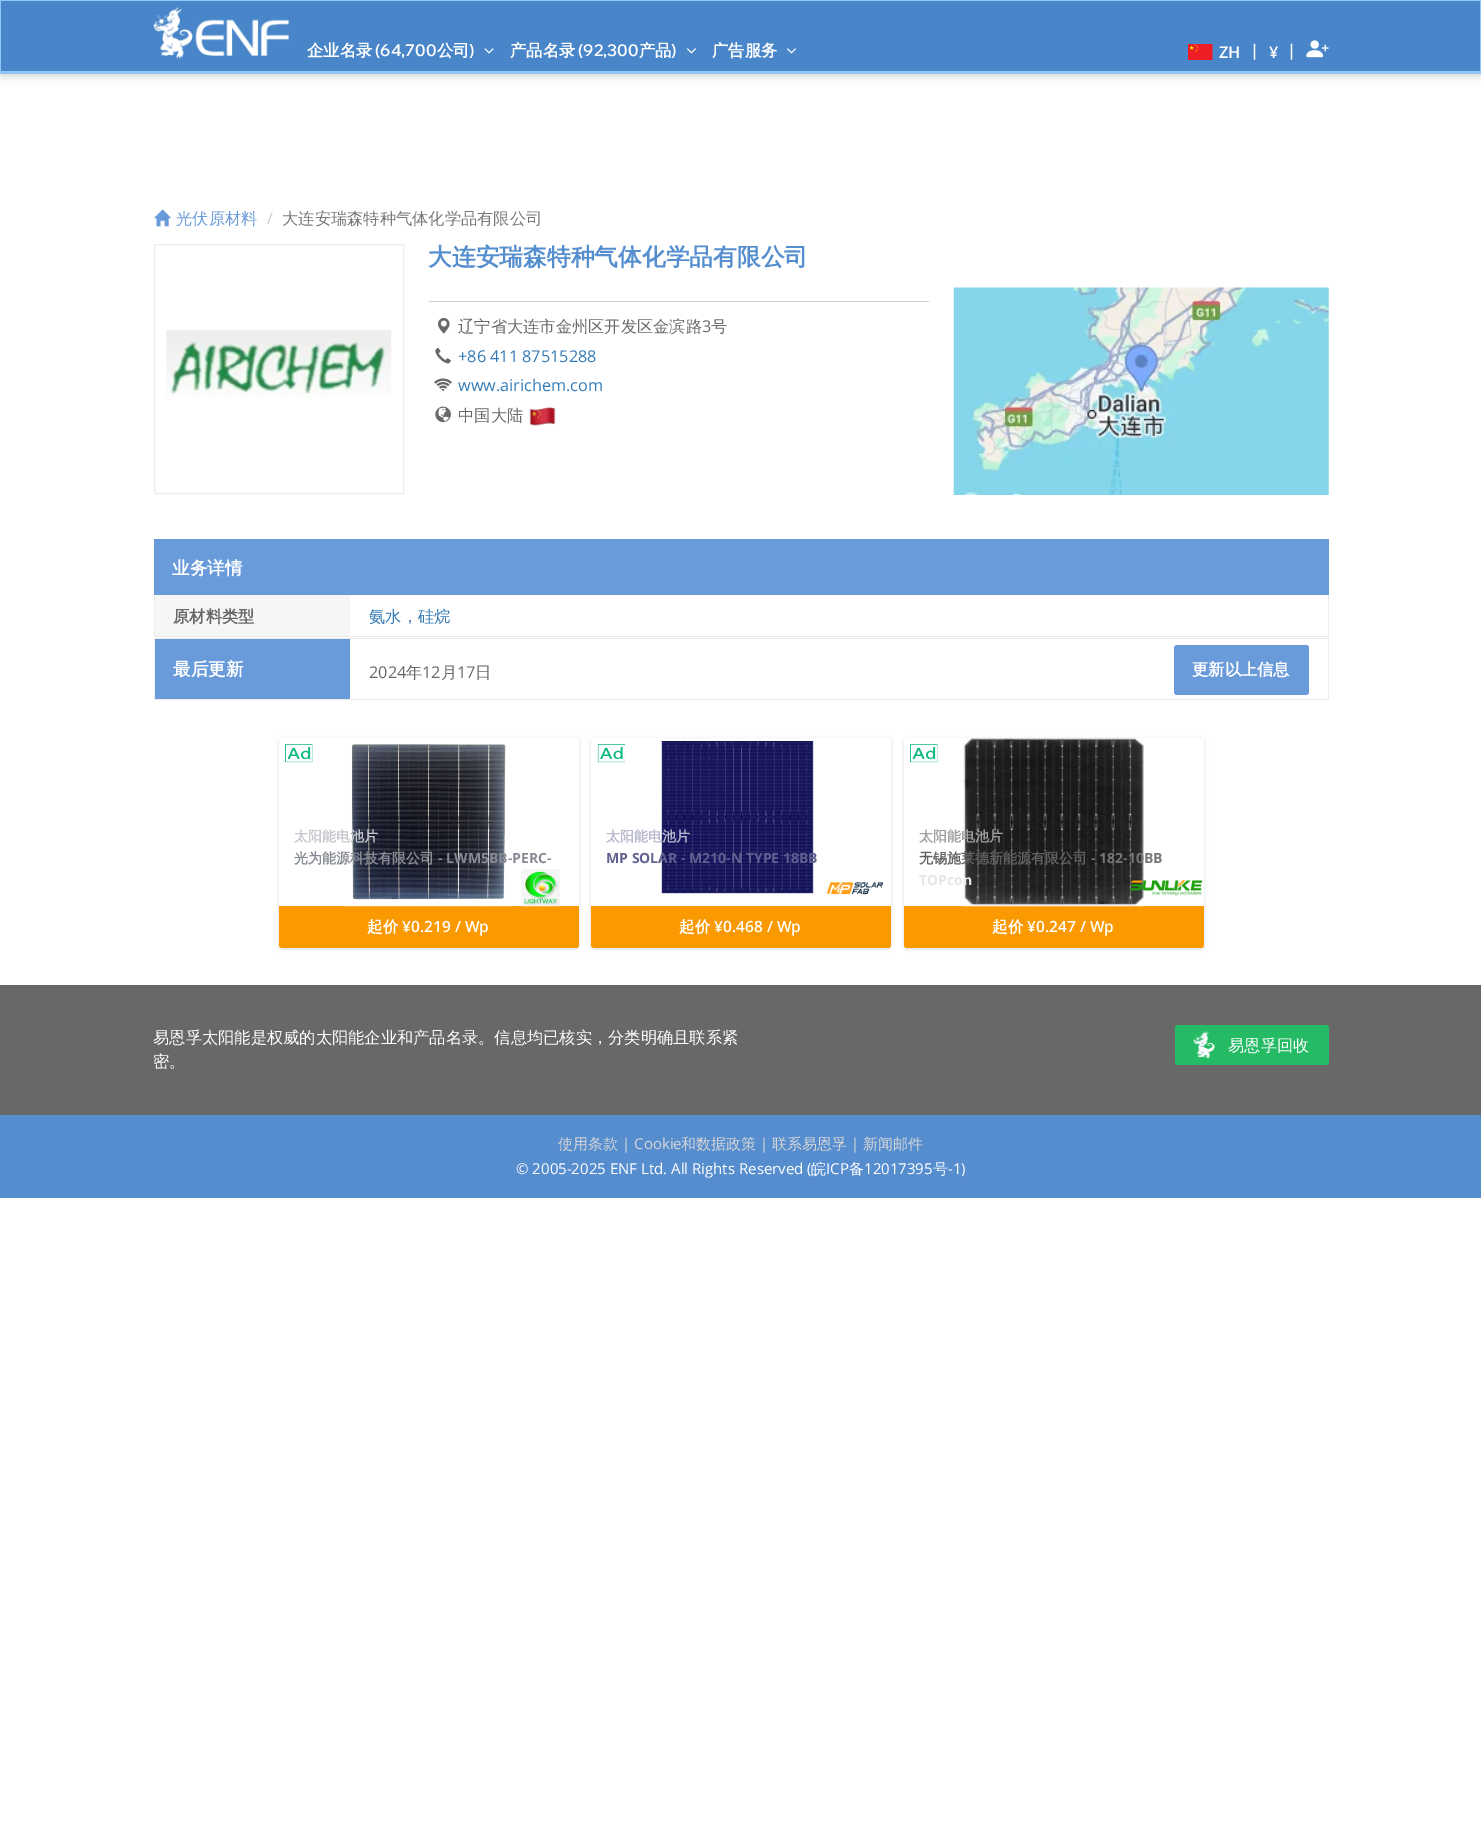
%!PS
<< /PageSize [1481 1829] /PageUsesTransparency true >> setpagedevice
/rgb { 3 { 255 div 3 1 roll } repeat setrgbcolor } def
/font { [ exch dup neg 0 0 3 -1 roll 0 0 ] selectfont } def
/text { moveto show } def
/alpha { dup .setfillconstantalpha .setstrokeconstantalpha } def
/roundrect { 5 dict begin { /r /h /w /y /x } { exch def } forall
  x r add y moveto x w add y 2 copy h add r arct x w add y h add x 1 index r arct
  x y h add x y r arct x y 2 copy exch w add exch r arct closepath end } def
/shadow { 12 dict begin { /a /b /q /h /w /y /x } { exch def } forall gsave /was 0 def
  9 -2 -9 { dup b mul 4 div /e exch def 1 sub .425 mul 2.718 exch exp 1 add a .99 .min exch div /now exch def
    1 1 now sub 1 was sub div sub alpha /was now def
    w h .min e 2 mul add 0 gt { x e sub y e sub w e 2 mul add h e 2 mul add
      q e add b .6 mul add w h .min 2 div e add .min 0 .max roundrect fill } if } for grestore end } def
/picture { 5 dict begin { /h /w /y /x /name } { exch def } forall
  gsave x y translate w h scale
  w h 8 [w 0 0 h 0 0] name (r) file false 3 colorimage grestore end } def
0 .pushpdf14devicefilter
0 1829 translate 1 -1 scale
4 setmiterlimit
255 255 255 rgb
0 0 1481 1829 rectfill
0 0 0 rgb
1 4 1479 71 0 2.5 0.06 shadow
1 6 1479 72 0 4 0.1 shadow
73 134 201 rgb
1 1 1479 70 rectfill
147 197 253 rgb
0 0 1481 1 rectfill
1480 0 1 74 rectfill
0 71 1481 3 rectfill
0 0 1 74 rectfill
(img_01.rgb) 153 7 136 52 picture
(img_02.rgb) 484 48 10 6 picture
(img_03.rgb) 687 48 9 6 picture
(img_03.rgb) 787 48 9 6 picture
(img_04.rgb) 1188 44 25 16 picture
(img_05.rgb) 1306 40 23 18 picture
(img_06.rgb) 154 209 18 18 picture
236 236 236 rgb
154.5 244.5 249 249 rectstroke
(img_07.rgb) 166 330 226 68 picture
208 208 208 rgb
429 301 500 1 rectfill
(img_08.rgb) 438 317 12 17 picture
(img_09.rgb) 435 347 16 17 picture
(img_10.rgb) 434 378 18 13 picture
(img_11.rgb) 435 406 16 17 picture
(img_12.rgb) 529 407 27 19 picture
(img_13.rgb) 953 287 376 208 picture
236 236 236 rgb
154 638 1175 1 rectfill
154 636 1175 1 rectfill
105 154 218 rgb
154 539 1175 56 rectfill
236 236 236 rgb
1328 595 1 41 rectfill
154 595 1 41 rectfill
246 246 246 rgb
155 595 195 41 rectfill
236 236 236 rgb
154 699 1175 1 rectfill
1328 639 1 60 rectfill
154 639 1 60 rectfill
105 154 218 rgb
155 639 195 60 rectfill
1174 645 135 50 3 roundrect fill
0 0 0 rgb
279 739 300 210 3 1 0.06 shadow
279 739 300 210 3 2 0.1 shadow
255 255 255 rgb
279 738 300 210 3 roundrect fill
(img_14.rgb) 285 744 28 19 picture
251 153 0 rgb
279 906 moveto 300 0 rlineto 0 39 rlineto 0 1.5 -1.5 3 -3 3 rcurveto -294 0 rlineto -1.5 0 -3 -1.5 -3 -3 rcurveto closepath fill
(img_15.rgb) 343 744 170 163 picture
(img_16.rgb) 521 869 39 38 picture
0 0 0 rgb
591 739 300 210 3 1 0.06 shadow
591 739 300 210 3 2 0.1 shadow
255 255 255 rgb
591 738 300 210 3 roundrect fill
(img_17.rgb) 597 744 28 19 picture
(img_18.rgb) 661 741 153 153 picture
(img_19.rgb) 826 882 58 13 picture
251 153 0 rgb
591 906 moveto 300 0 rlineto 0 39 rlineto 0 1.5 -1.5 3 -3 3 rcurveto -294 0 rlineto -1.5 0 -3 -1.5 -3 -3 rcurveto closepath fill
0 0 0 rgb
904 739 300 210 3 1 0.06 shadow
904 739 300 210 3 2 0.1 shadow
255 255 255 rgb
904 738 300 210 3 roundrect fill
(img_14.rgb) 910 744 28 19 picture
251 153 0 rgb
904 906 moveto 300 0 rlineto 0 39 rlineto 0 1.5 -1.5 3 -3 3 rcurveto -294 0 rlineto -1.5 0 -3 -1.5 -3 -3 rcurveto closepath fill
(img_20.rgb) 962 738 182 169 picture
(img_21.rgb) 1130 880 73 16 picture
104 104 104 rgb
0 985 1481 130 rectfill
37 186 100 rgb
1175 1025 154 40 3 roundrect fill
(img_22.rgb) 1193 1031 23 28 picture
86 141 207 rgb
0 1115 1481 83 rectfill
/WenQuanYiZenHei-Bold 16.25 font
255 255 255 rgb
(企业名录) 307 56 text
/WixMadeforDisplay-SemiBold 16.25 font
(\(64,700) 375 56 text
/WenQuanYiZenHei-Bold 16.25 font
(公司) 437 56 text
/WixMadeforDisplay-SemiBold 16.25 font
(\)) 469 56 text
/WenQuanYiZenHei-Bold 16.25 font
(产品名录) 510 56 text
/WixMadeforDisplay-SemiBold 16.25 font
(\(92,300) 578 56 text
/WenQuanYiZenHei-Bold 16.25 font
(产品) 639 56 text
/WixMadeforDisplay-SemiBold 16.25 font
(\)) 671 56 text
/WenQuanYiZenHei-Bold 16.25 font
(广告服务) 712 56 text
/OpenSans-SemiBold 16.25 font
(ZH) 1219 58 text
(|) 1250 56 text
(¥) 1269 58 text
(|) 1287 56 text
/WenQuanYiZenHei-Medium 16.25 font
105 154 218 rgb
(光伏原材料) 176 224 text
/OpenSans-Regular 16.25 font
204 204 204 rgb
(/) 267 224 text
/WenQuanYiZenHei-Medium 16.25 font
119 119 119 rgb
(大连安瑞森特种气体化学品有限公司) 282 224 text
/WenQuanYiZenHei-Bold 23.75 font
84 142 206 rgb
(大连安瑞森特种气体化学品有限公司) 428 265 text
/WenQuanYiZenHei-Medium 16.25 font
104 104 104 rgb
(辽宁省大连市金州区开发区金滨路) 458 332 text
/OpenSans-Regular 16.25 font
(3) 702 332 text
/WenQuanYiZenHei-Medium 16.25 font
(号) 711 332 text
/OpenSans-Regular 16.25 font
51 122 183 rgb
(+86 411 87515288) 458 362 text
(www.airichem.com) 458 391 text
/WenQuanYiZenHei-Medium 16.25 font
104 104 104 rgb
(中国大陆) 458 421 text
/WenQuanYiZenHei-Bold 17.5 font
255 255 255 rgb
(业务详情) 172 574 text
/WenQuanYiZenHei-Bold 16.25 font
104 104 104 rgb
(原材料类型) 173 622 text
/WenQuanYiZenHei-Medium 16.25 font
51 122 183 rgb
(氨水，硅烷) 369 622 text
/WenQuanYiZenHei-Bold 17.5 font
255 255 255 rgb
(最后更新) 173 675 text
/OpenSans-Regular 16.25 font
104 104 104 rgb
(2024) 369 678 text
/WenQuanYiZenHei-Medium 16.25 font
(年) 406 678 text
/OpenSans-Regular 16.25 font
(12) 422 678 text
/WenQuanYiZenHei-Medium 16.25 font
(月) 441 678 text
/OpenSans-Regular 16.25 font
(17) 457 678 text
/WenQuanYiZenHei-Medium 16.25 font
(日) 475 678 text
/WenQuanYiZenHei-Bold 16.25 font
255 255 255 rgb
(更新以上信息) 1192 675 text
/WenQuanYiZenHei-Bold 14 font
198 199 204 rgb
(太阳能电池片) 294 841 text
136 139 147 rgb
(光为能源科技有限公司) 294 863 text
/OpenSans-Bold 14 font
(- LWM5BB-PERC-) 438 863 text
/WenQuanYiZenHei-Bold 15.5 font
255 255 255 rgb
(起价) 367 932 text
/OpenSans-SemiBold 15.5 font
(¥0.219 / Wp) 402 932 text
/WenQuanYiZenHei-Bold 14 font
184 184 206 rgb
(太阳能电池片) 606 841 text
/OpenSans-Bold 14 font
97 96 145 rgb
(MP SOLAR - M210-N TYPE 18BB) 606 863 text
/WenQuanYiZenHei-Bold 15.5 font
255 255 255 rgb
(起价) 679 932 text
/OpenSans-SemiBold 15.5 font
(¥0.468 / Wp) 714 932 text
/WenQuanYiZenHei-Bold 14 font
160 160 160 rgb
(太阳能电池片) 919 841 text
97 97 97 rgb
(无锡施莱德新能源有限公司) 919 863 text
/OpenSans-Bold 14 font
119 119 119 rgb
(- 182-10BB) 1091 863 text
229 229 229 rgb
(TOPcon) 919 885 text
/WenQuanYiZenHei-Bold 15.5 font
255 255 255 rgb
(起价) 992 932 text
/OpenSans-SemiBold 15.5 font
(¥0.247 / Wp) 1027 932 text
/WenQuanYiZenHei-Medium 16.25 font
(易恩孚太阳能是权威的太阳能企业和产品名录。信息均已核实，分类明确且联系紧) 153 1043 text
(密。) 153 1067 text
(易恩孚回收) 1228 1051 text
/WenQuanYiZenHei-Medium 15 font
214 214 214 rgb
(使用条款) 558 1149 text
/OpenSans-Regular 15 font
(| Cookie) 622 1149 text
/WenQuanYiZenHei-Medium 15 font
(和数据政策) 681 1149 text
/OpenSans-Regular 15 font
(|) 760 1149 text
/WenQuanYiZenHei-Medium 15 font
(联系易恩孚) 772 1149 text
/OpenSans-Regular 15 font
(|) 851 1149 text
/WenQuanYiZenHei-Medium 15 font
(新闻邮件) 863 1149 text
/OpenSans-Regular 15 font
255 255 255 rgb
(© 2005-2025 ENF Ltd. All Rights Reserved \() 516 1174 text
/WenQuanYiZenHei-Medium 15 font
(皖) 811 1174 text
/OpenSans-Regular 15 font
(ICP) 826 1174 text
/WenQuanYiZenHei-Medium 15 font
(备) 849 1174 text
/OpenSans-Regular 15 font
(12017395) 864 1174 text
/WenQuanYiZenHei-Medium 15 font
(号) 933 1174 text
/OpenSans-Regular 15 font
(-1\)) 948 1174 text
.poppdf14devicefilter showpage
